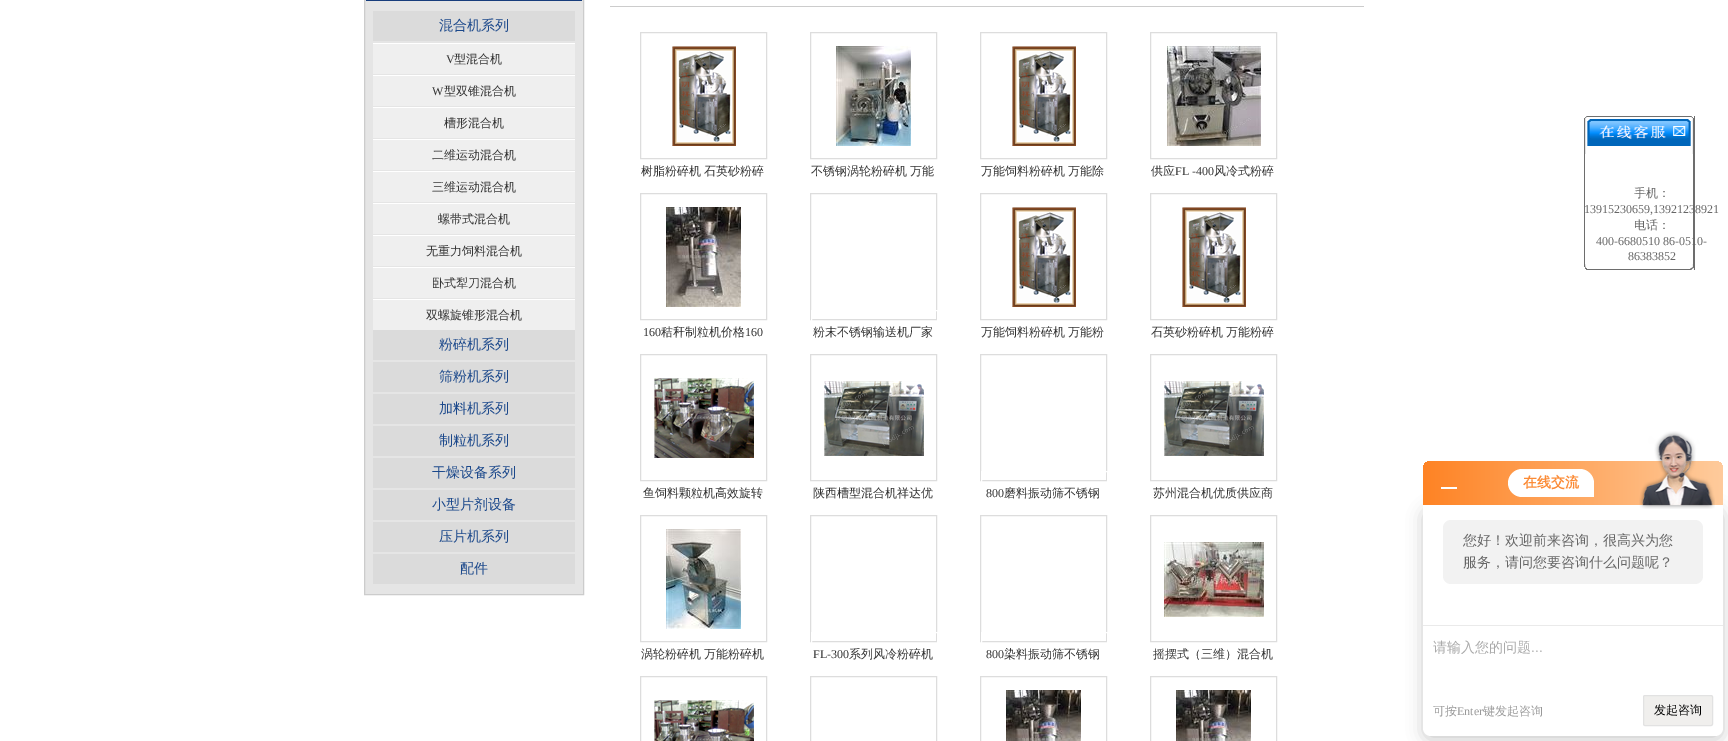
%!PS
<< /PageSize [1728 741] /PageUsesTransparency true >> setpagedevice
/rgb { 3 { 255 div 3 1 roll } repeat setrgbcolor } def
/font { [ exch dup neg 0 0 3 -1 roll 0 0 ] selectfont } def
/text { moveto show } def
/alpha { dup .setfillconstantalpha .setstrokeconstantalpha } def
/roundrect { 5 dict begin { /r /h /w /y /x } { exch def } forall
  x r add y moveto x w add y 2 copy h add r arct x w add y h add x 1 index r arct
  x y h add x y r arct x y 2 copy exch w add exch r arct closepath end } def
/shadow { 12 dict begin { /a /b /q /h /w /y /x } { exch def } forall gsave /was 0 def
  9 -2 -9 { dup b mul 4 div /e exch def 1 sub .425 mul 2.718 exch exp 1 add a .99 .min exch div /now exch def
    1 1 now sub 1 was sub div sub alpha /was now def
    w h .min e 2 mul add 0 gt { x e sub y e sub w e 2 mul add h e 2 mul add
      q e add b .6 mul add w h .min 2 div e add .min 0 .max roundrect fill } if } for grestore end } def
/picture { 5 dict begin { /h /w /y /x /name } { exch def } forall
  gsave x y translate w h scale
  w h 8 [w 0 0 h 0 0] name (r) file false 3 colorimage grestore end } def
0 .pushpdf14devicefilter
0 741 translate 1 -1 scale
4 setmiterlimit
255 255 255 rgb
0 0 1728 741 rectfill
229 229 229 rgb
364.5 -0.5 moveto 219 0 rlineto 0 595 rlineto -219 0 rlineto closepath gsave fill grestore
204 204 204 rgb
stroke
23 61 124 rgb
366 0 216 1 rectfill
219 219 219 rgb
373 11 202 30 rectfill
239 239 239 rgb
373 44 202 30 rectfill
255 255 255 rgb
373 43 202 1 rectfill
239 239 239 rgb
373 76 202 30 rectfill
255 255 255 rgb
373 75 202 1 rectfill
239 239 239 rgb
373 108 202 30 rectfill
255 255 255 rgb
373 107 202 1 rectfill
239 239 239 rgb
373 140 202 30 rectfill
255 255 255 rgb
373 139 202 1 rectfill
239 239 239 rgb
373 172 202 30 rectfill
255 255 255 rgb
373 171 202 1 rectfill
239 239 239 rgb
373 204 202 30 rectfill
255 255 255 rgb
373 203 202 1 rectfill
239 239 239 rgb
373 236 202 30 rectfill
255 255 255 rgb
373 235 202 1 rectfill
239 239 239 rgb
373 268 202 30 rectfill
255 255 255 rgb
373 267 202 1 rectfill
239 239 239 rgb
373 300 202 30 rectfill
255 255 255 rgb
373 299 202 1 rectfill
219 219 219 rgb
373 330 202 30 rectfill
373 362 202 30 rectfill
373 394 202 30 rectfill
373 426 202 30 rectfill
373 458 202 30 rectfill
373 490 202 30 rectfill
373 522 202 30 rectfill
373 554 202 30 rectfill
204 204 204 rgb
610 6 754 1 rectfill
221 221 221 rgb
640.5 32.5 126 126 rectstroke
(img_01.rgb) 672 46 64 100 picture
810.5 32.5 126 126 rectstroke
(img_02.rgb) 836 46 75 100 picture
980.5 32.5 126 126 rectstroke
(img_01.rgb) 1012 46 64 100 picture
1150.5 32.5 126 126 rectstroke
(img_03.rgb) 1167 46 94 100 picture
640.5 193.5 126 126 rectstroke
(img_04.rgb) 666 207 75 100 picture
810.5 193.5 126 126 rectstroke
255 255 255 rgb
811.5 310.5 126 15 rectstroke
221 221 221 rgb
980.5 193.5 126 126 rectstroke
(img_01.rgb) 1012 207 64 100 picture
1150.5 193.5 126 126 rectstroke
(img_01.rgb) 1182 207 64 100 picture
640.5 354.5 126 126 rectstroke
(img_05.rgb) 654 378 100 80 picture
810.5 354.5 126 126 rectstroke
(img_06.rgb) 824 381 100 75 picture
980.5 354.5 126 126 rectstroke
255 255 255 rgb
981.5 471.5 126 15 rectstroke
221 221 221 rgb
1150.5 354.5 126 126 rectstroke
(img_06.rgb) 1164 381 100 75 picture
640.5 515.5 126 126 rectstroke
(img_07.rgb) 666 529 75 100 picture
810.5 515.5 126 126 rectstroke
255 255 255 rgb
811.5 632.5 126 15 rectstroke
221 221 221 rgb
980.5 515.5 126 126 rectstroke
255 255 255 rgb
981.5 632.5 126 15 rectstroke
221 221 221 rgb
1150.5 515.5 126 126 rectstroke
(img_08.rgb) 1164 542 100 75 picture
640.5 676.5 126 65 rectstroke
(img_09.rgb) 654 700 100 41 picture
810.5 676.5 126 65 rectstroke
980.5 676.5 126 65 rectstroke
(img_10.rgb) 1006 690 75 51 picture
1150.5 676.5 126 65 rectstroke
(img_10.rgb) 1176 690 75 51 picture
(img_11.rgb) 1694 116 1 38 picture
(img_12.rgb) 1584 116 110 38 picture
(img_13.rgb) 1584 154 111 110 picture
(img_14.rgb) 1694 264 1 6 picture
(img_15.rgb) 1584 264 110 6 picture
0 0 0 rgb
1423 509 300 231 8 8 0.2 shadow
gsave 1431 461 moveto 284 0 rlineto 4.5 0 8 3.5 8 8 rcurveto 0 36 rlineto -300 0 rlineto 0 -36 rlineto 0 -4.5 3.5 -8 8 -8 rcurveto closepath clip newpath
<< /ShadingType 2 /ColorSpace /DeviceRGB /Coords [1423 483 1723 483] /Extend [true true] /Function << /FunctionType 2 /Domain [0 1] /C0 [1 0.514 0.141] /C1 [0.996 0.796 0.612] /N 1 >> >> shfill grestore
255 255 255 rgb
1441 487 16 2 rectfill
1522 469 moveto 58 0 rlineto 7.5 0 14 6.5 14 14 rcurveto 0 14 rlineto -72 0 rlineto -7.5 0 -14 -6.5 -14 -14 rcurveto 0 -7.5 6.5 -14 14 -14 rcurveto closepath fill
1423 505 moveto 300 0 rlineto 0 223 rlineto 0 4.5 -3.5 8 -8 8 rcurveto -284 0 rlineto -4.5 0 -8 -3.5 -8 -8 rcurveto closepath fill
(img_16.rgb) 1639 431 76 78 picture
242 242 242 rgb
1443 520 260 64 8 roundrect fill
234 234 234 rgb
1423 625 300 1 rectfill
240 239 237 rgb
1643.5 695.5 69 30 1.5 roundrect gsave fill grestore
226 226 226 rgb
stroke
/WenQuanYiZenHei-Medium 14 font
27 72 139 rgb
(混合机系列) 439 30 text
/LiberationSerif-Regular 12 font
51 51 51 rgb
(V) 446 63 text
/WenQuanYiZenHei-Medium 12 font
(型混合机) 454 63 text
/LiberationSerif-Regular 12 font
(W) 432 95 text
/WenQuanYiZenHei-Medium 12 font
(型双锥混合机) 444 95 text
(槽形混合机) 444 127 text
(二维运动混合机) 432 159 text
(三维运动混合机) 432 191 text
(螺带式混合机) 438 223 text
(无重力饲料混合机) 426 255 text
(卧式犁刀混合机) 432 287 text
(双螺旋锥形混合机) 426 319 text
/WenQuanYiZenHei-Medium 14 font
27 72 139 rgb
(粉碎机系列) 439 349 text
(筛粉机系列) 439 381 text
(加料机系列) 439 413 text
(制粒机系列) 439 445 text
(干燥设备系列) 432 477 text
(小型片剂设备) 432 509 text
(压片机系列) 439 541 text
(配件) 460 573 text
/WenQuanYiZenHei-Medium 12 font
51 51 51 rgb
(树脂粉碎机) 641 175 text
(石英砂粉碎) 704 175 text
(不锈钢涡轮粉碎机) 811 175 text
(万能) 910 175 text
(万能饲料粉碎机) 981 175 text
(万能除) 1068 175 text
(供应) 1151 175 text
/LiberationSerif-Regular 12 font
(FL -400) 1175 175 text
/WenQuanYiZenHei-Medium 12 font
(风冷式粉碎) 1214 175 text
/LiberationSerif-Regular 12 font
(160) 643 336 text
/WenQuanYiZenHei-Medium 12 font
(秸秆制粒机价格) 661 336 text
/LiberationSerif-Regular 12 font
(160) 745 336 text
/WenQuanYiZenHei-Medium 12 font
(粉末不锈钢输送机厂家) 813 336 text
(万能饲料粉碎机) 981 336 text
(万能粉) 1068 336 text
1151 336 moveto -1 0 32 (石英砂粉碎机 万能粉碎) widthshow
(鱼饲料颗粒机高效旋转) 643 497 text
(陕西槽型混合机祥达优) 813 497 text
/LiberationSerif-Regular 12 font
(800) 986 497 text
/WenQuanYiZenHei-Medium 12 font
(磨料振动筛不锈钢) 1004 497 text
(苏州混合机优质供应商) 1153 497 text
(涡轮粉碎机) 641 658 text
(万能粉碎机) 704 658 text
/LiberationSerif-Regular 12 font
(FL-300) 813 658 text
/WenQuanYiZenHei-Medium 12 font
(系列风冷粉碎机) 849 658 text
/LiberationSerif-Regular 12 font
(800) 986 658 text
/WenQuanYiZenHei-Medium 12 font
(染料振动筛不锈钢) 1004 658 text
(摇摆式（三维）混合机) 1153 658 text
102 102 102 rgb
(手机：) 1634 197 text
/LiberationSerif-Regular 12 font
(13915230659,13921238921) 1584 213 text
/WenQuanYiZenHei-Medium 12 font
(电话：) 1634 229 text
/LiberationSerif-Regular 12 font
(400-6680510 86-0510-) 1596 245 text
(86383852) 1628 260 text
/WenQuanYiZenHei-Bold 14 font
251 139 54 rgb
(在线交流) 1523 487 text
/WenQuanYiZenHei-Medium 14 font
102 102 102 rgb
(您好！欢迎前来咨询，很高兴为您) 1463 545 text
(服务，请问您要咨询什么问题呢？) 1463 567 text
170 170 170 rgb
(请输入您的问题) 1433 652 text
/LiberationSans-Regular 14 font
(...) 1531 652 text
/WenQuanYiZenHei-Medium 12 font
153 153 153 rgb
(可按) 1433 715 text
/LiberationSerif-Regular 12 font
(Enter) 1457 715 text
/WenQuanYiZenHei-Medium 12 font
(键发起咨询) 1483 715 text
0 0 0 rgb
(发起咨询) 1654 714 text
.poppdf14devicefilter showpage
